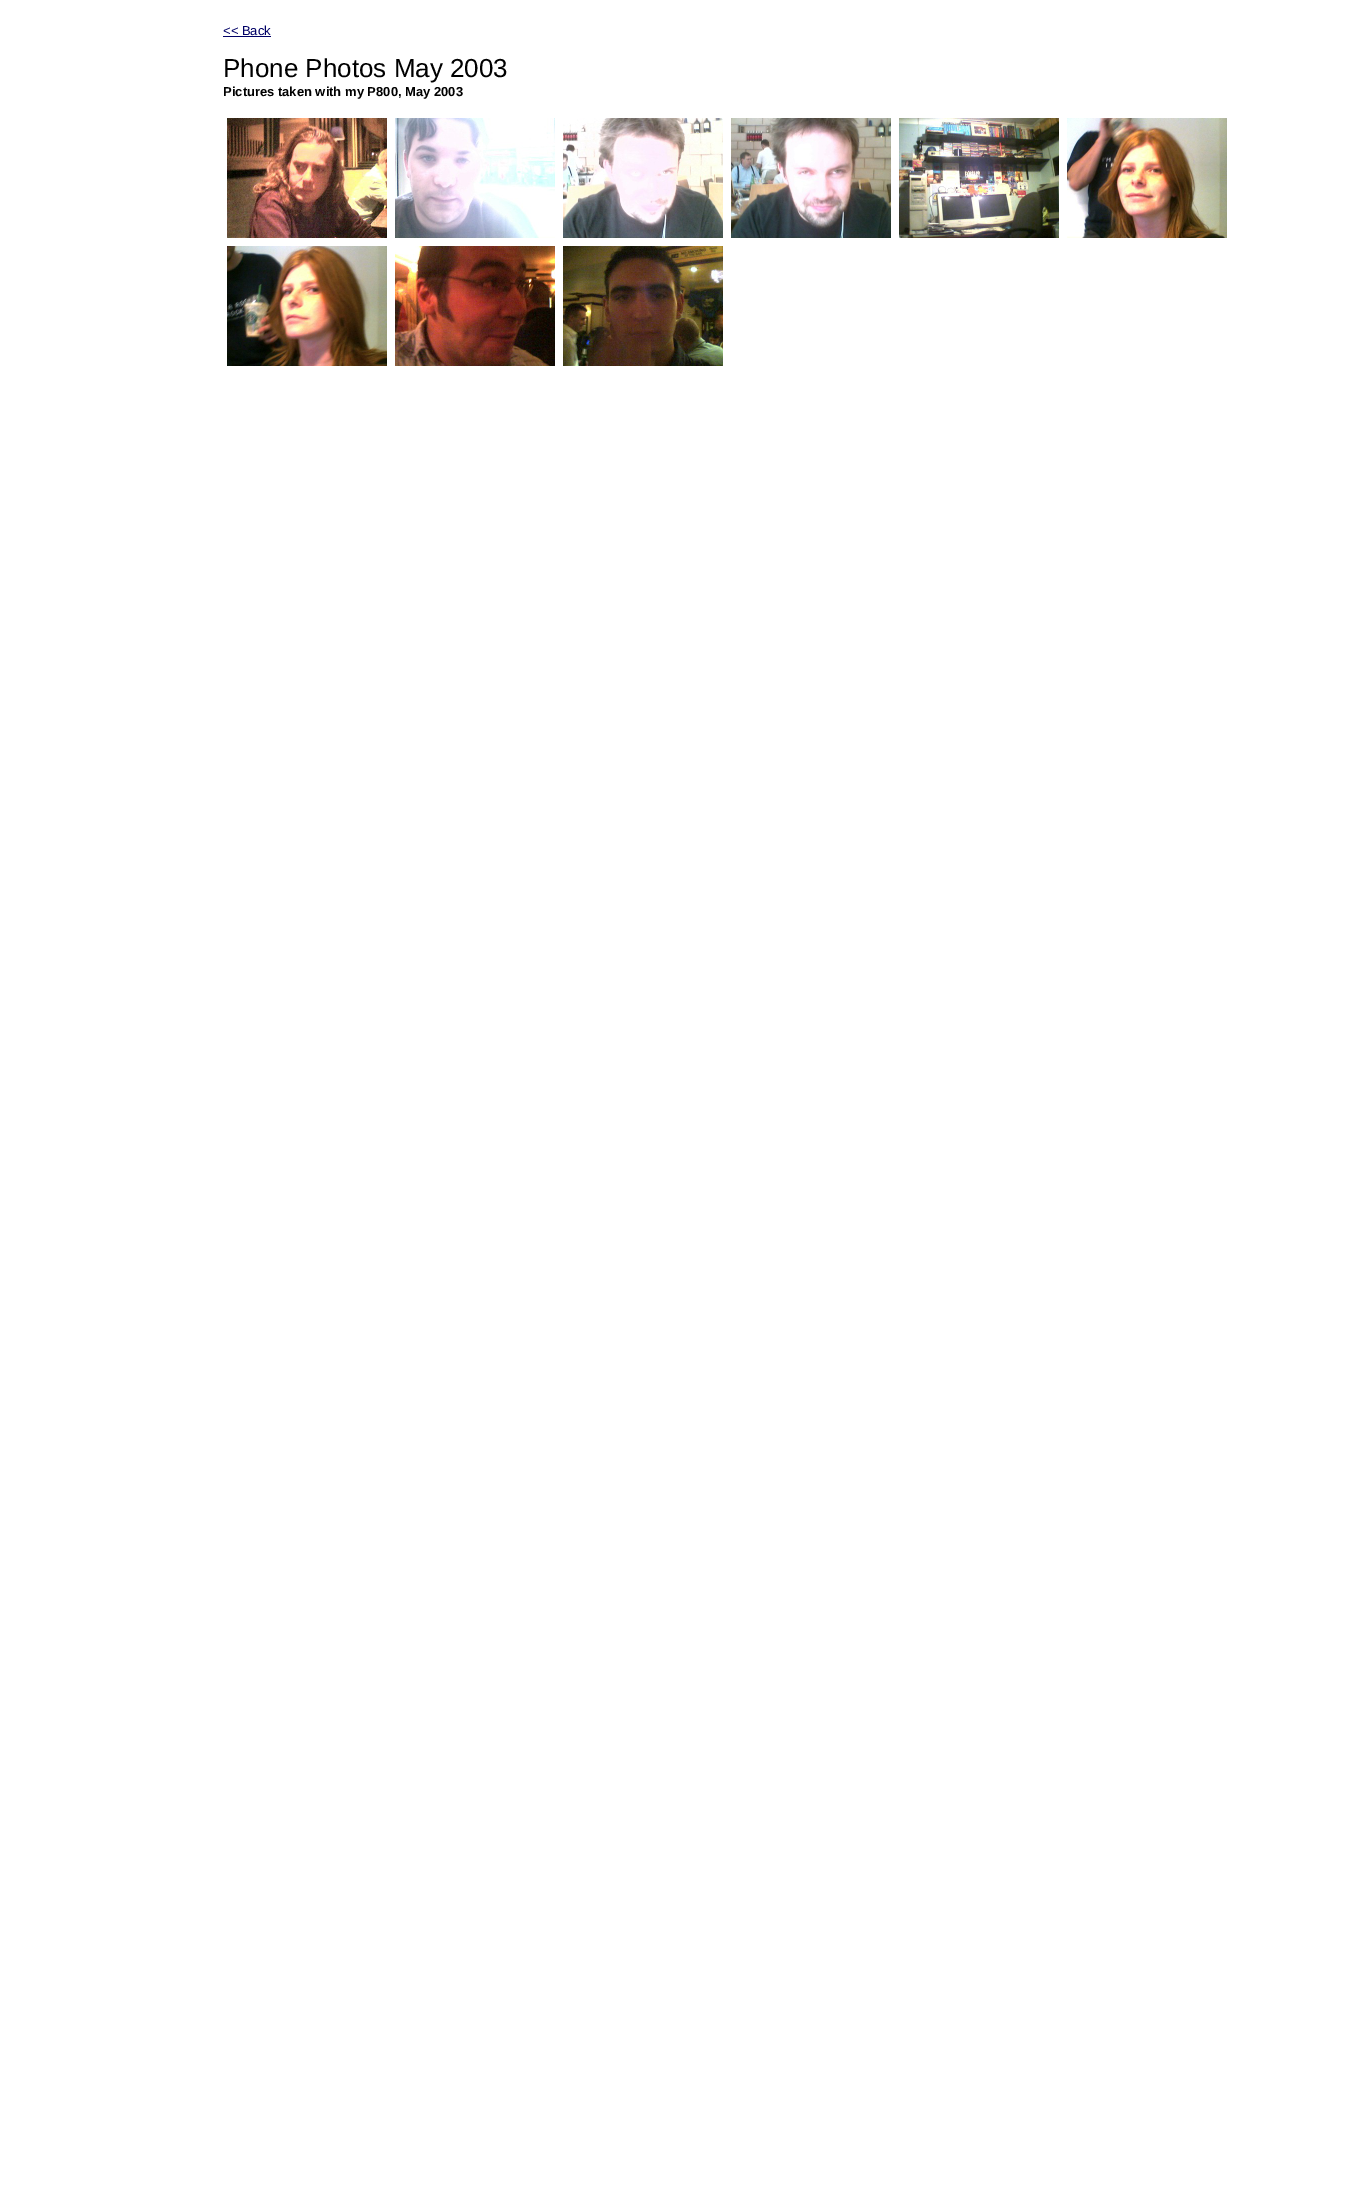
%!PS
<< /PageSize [1351 2212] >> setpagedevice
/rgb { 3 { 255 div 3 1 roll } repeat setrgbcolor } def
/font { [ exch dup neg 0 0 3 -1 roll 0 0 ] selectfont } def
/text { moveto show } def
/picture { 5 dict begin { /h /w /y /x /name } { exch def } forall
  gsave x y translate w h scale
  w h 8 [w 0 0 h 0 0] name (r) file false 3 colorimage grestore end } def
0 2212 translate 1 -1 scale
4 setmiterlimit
255 255 255 rgb
0 0 1351 2212 rectfill
0 0 102 rgb
223 36 48 1 rectfill
(img_01.rgb) 227 118 160 120 picture
(img_02.rgb) 395 118 160 120 picture
(img_03.rgb) 563 118 160 120 picture
(img_04.rgb) 731 118 160 120 picture
(img_05.rgb) 899 118 160 120 picture
(img_06.rgb) 1067 118 160 120 picture
(img_07.rgb) 227 246 160 120 picture
(img_08.rgb) 395 246 160 120 picture
(img_09.rgb) 563 246 160 120 picture
/LiberationSans-Regular 13 font
(<< Back) 223 35 text
/LiberationSans-Regular 26 font
0 0 0 rgb
(Phone Photos May 2003) 223 77 text
/LiberationSans-Bold 13 font
(Pictures taken with my P800, May 2003) 223 96 text
showpage
